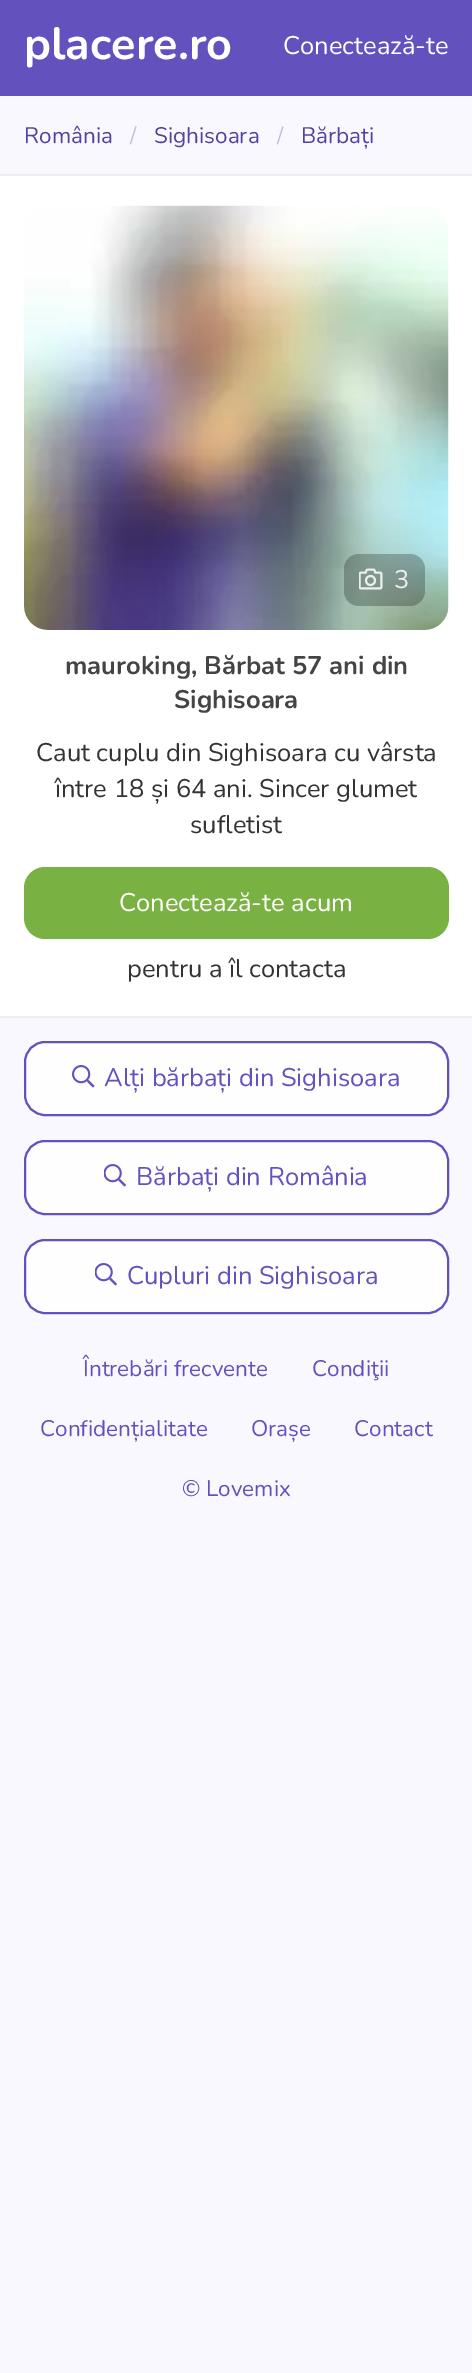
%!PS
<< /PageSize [472 2373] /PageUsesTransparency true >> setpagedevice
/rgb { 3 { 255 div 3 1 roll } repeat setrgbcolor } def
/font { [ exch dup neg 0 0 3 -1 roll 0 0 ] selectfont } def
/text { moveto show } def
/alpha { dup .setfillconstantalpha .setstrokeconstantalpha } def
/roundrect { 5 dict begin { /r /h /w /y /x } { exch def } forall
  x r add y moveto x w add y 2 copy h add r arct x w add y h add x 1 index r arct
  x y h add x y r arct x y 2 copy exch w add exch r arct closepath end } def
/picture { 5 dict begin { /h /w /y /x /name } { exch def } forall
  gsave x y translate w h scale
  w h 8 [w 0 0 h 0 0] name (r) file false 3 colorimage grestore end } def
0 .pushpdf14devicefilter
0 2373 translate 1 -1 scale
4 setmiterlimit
249 248 255 rgb
0 0 472 2373 rectfill
99 81 189 rgb
0 0 472 96 rectfill
255 255 255 rgb
0 176 472 840 rectfill
238 238 238 rgb
0 174 472 2 rectfill
0 1016 472 2 rectfill
(img_01.rgb) 24 205 425 425 picture
0.25 alpha
0 0 0 rgb
344 554 81 52 15 roundrect fill
1 alpha
(img_02.rgb) 359 568 24 22 picture
122 177 67 rgb
24 867 425 72 21 roundrect fill
254 254 255 rgb
25 1042 423 73 20 roundrect gsave fill grestore
99 81 189 rgb
2 setlinewidth
stroke
(img_03.rgb) 72 1065 23 23 picture
254 254 255 rgb
25 1141 423 73 20 roundrect gsave fill grestore
99 81 189 rgb
stroke
(img_04.rgb) 104 1164 22 23 picture
254 254 255 rgb
25 1240 423 73 20 roundrect gsave fill grestore
99 81 189 rgb
stroke
(img_04.rgb) 95 1263 22 23 picture
/Nunito-Bold 45 font
255 255 255 rgb
(placere.ro) 24 59 text
/Nunito-Regular 25.5 font
(Conectează-te) 283 54 text
/Nunito-Regular 22.5 font
84 66 161 rgb
(România) 24 143 text
199 189 219 rgb
(/) 130 143 text
84 66 161 rgb
(Sighisoara) 154 143 text
199 189 219 rgb
(/) 277 143 text
84 66 161 rgb
(Bărbați) 301 143 text
/Nunito-Regular 25.5 font
238 238 238 rgb
(3) 394 588 text
/Nunito-Bold 25.5 font
68 68 68 rgb
(mauroking, Bărbat 57 ani din) 65 674 text
(Sighisoara) 174 708 text
/Nunito-Regular 25.5 font
51 51 51 rgb
(Caut cuplu din Sighisoara cu vârsta) 36 761 text
(între 18 și 64 ani. Sincer glumet) 55 797 text
(sufletist) 190 833 text
255 255 255 rgb
(Conectează-te acum) 119 911 text
51 51 51 rgb
(pentru a îl contacta) 127 977 text
99 81 189 rgb
(Alți bărbați din Sighisoara) 104 1086 text
(Bărbați din România) 136 1185 text
(Cupluri din Sighisoara) 127 1284 text
/Nunito-Regular 22.5 font
(Întrebări frecvente) 83 1376 text
(Condiţii) 312 1376 text
(Confidențialitate) 40 1436 text
(Orașe) 251 1436 text
(Contact) 354 1436 text
(© Lovemix) 182 1496 text
.poppdf14devicefilter showpage
